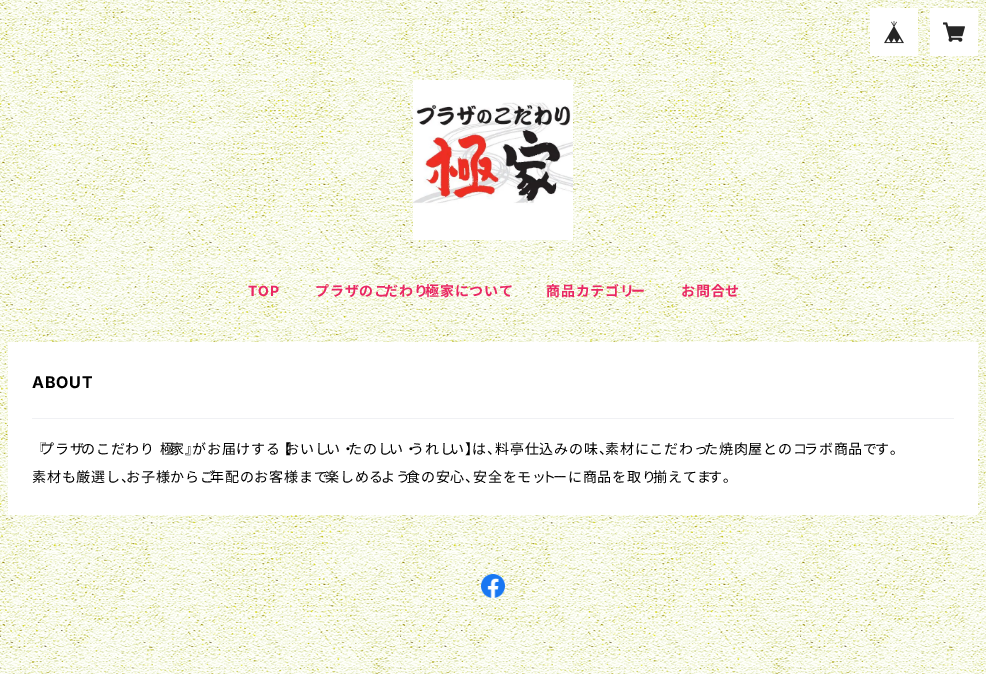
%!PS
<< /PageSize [986 674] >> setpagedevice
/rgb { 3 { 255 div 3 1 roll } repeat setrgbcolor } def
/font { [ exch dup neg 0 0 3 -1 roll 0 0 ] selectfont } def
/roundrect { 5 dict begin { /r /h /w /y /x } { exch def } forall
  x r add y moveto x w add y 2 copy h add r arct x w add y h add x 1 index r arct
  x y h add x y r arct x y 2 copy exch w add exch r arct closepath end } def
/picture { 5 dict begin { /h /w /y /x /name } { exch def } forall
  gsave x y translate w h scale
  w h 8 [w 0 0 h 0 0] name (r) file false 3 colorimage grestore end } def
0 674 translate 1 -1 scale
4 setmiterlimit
255 255 255 rgb
0 0 986 674 rectfill
(img_01.rgb) 0 0 986 674 picture
870 8 48 48 rectfill
(img_02.rgb) 884 21 20 23 picture
930 8 48 48 rectfill
(img_03.rgb) 943 22 22 20 picture
(img_04.rgb) 413 80 160 160 picture
8 342 970 173 2 roundrect fill
240 241 244 rgb
32 418 922 1 rectfill
(img_05.rgb) 481 574 24 24 picture
/Inter-Bold 14 font
234 39 99 rgb
248 296 moveto 0.8 0 (TOP) ashow
/NotoSansJP-Bold 14 font
315 296 moveto 0.8 0 (プラザのこ) ashow
384 296 moveto 0.8 0 (だわり) ashow
425 296 moveto 0.8 0 (極家について) ashow
546 296 moveto 0.8 0 (商品カテゴリ) ashow
631 296 moveto 0.8 0 (ー) ashow
681 296 moveto 0.8 0 (お問合せ) ashow
/Inter-Bold 16 font
0 0 0 rgb
32 388 moveto 0.8 0 (ABOUT) ashow
/NotoSansJP-Regular 14 font
32 454 moveto 1 0 32 0.8 0 (『) awidthshow
40 454 moveto 1 0 32 0.8 0 (プラザ) awidthshow
81 454 moveto 1 0 32 0.8 0 (のこだわり 極) awidthshow
170 454 moveto 1 0 32 0.8 0 (家』) awidthshow
192 454 moveto 1 0 32 0.8 0 (がお届けする) awidthshow
277 454 moveto 1 0 32 0.8 0 (【) awidthshow
285 454 moveto 1 0 32 0.8 0 (おいし) awidthshow
326 454 moveto 1 0 32 0.8 0 (い・) awidthshow
348 454 moveto 1 0 32 0.8 0 (たのし) awidthshow
389 454 moveto 1 0 32 0.8 0 (い・) awidthshow
410 454 moveto 1 0 32 0.8 0 (うれし) awidthshow
450 454 moveto 1 0 32 0.8 0 (い】) awidthshow
472 454 moveto 1 0 32 0.8 0 (は、) awidthshow
495 454 moveto 1 0 32 0.8 0 (料亭仕込みの味、) awidthshow
605 454 moveto 1 0 32 0.8 0 (素材にこだわっ) awidthshow
704 454 moveto 1 0 32 0.8 0 (た焼肉屋とのコ) awidthshow
804 454 moveto 1 0 32 0.8 0 (ラボ商品で) awidthshow
875 454 moveto 1 0 32 0.8 0 (す。) awidthshow
32 482 moveto 0.8 0 (素材も厳選し、) ashow
126 482 moveto 0.8 0 (お子様からご) ashow
210 482 moveto 0.8 0 (年配のお客様まで) ashow
325 482 moveto 0.8 0 (楽しめる) ashow
381 482 moveto 0.8 0 (よう) ashow
406 482 moveto 0.8 0 (食の安心、) ashow
473 482 moveto 0.8 0 (安全をモッ) ashow
542 482 moveto 0.8 0 (ト) ashow
553 482 moveto 0.8 0 (ーに商品を取り) ashow
653 482 moveto 0.8 0 (揃えてま) ashow
708 482 moveto 0.8 0 (す。) ashow
showpage
